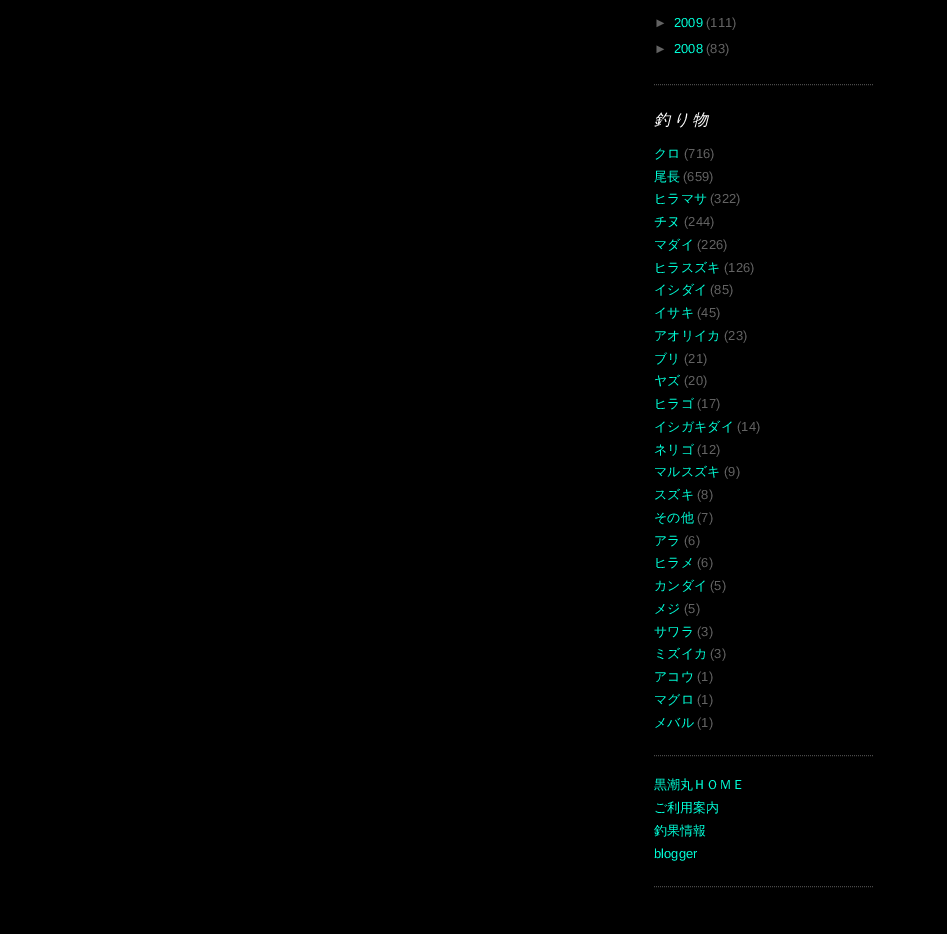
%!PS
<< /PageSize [947 934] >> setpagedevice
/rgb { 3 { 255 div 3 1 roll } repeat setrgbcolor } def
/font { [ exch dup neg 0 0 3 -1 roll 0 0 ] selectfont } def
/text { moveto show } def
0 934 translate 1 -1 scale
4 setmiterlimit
0 0 0 rgb
0 0 947 934 rectfill
74 74 74 rgb
[1 1] 0 setdash
654 84.5 moveto 220 0 rlineto stroke
654 755.5 moveto 220 0 rlineto stroke
654 886.5 moveto 220 0 rlineto stroke
/LiberationSans-Regular 13 font
99 99 99 rgb
(►) 654 27 text
0 255 216 rgb
(2009) 674 27 text
99 99 99 rgb
(\(111\)) 706 27 text
(►) 654 53 text
0 255 216 rgb
(2008) 674 53 text
99 99 99 rgb
(\(83\)) 706 53 text
/WenQuanYiZenHei-MediumItalic 16 font
255 255 255 rgb
654 125 moveto 3 0 (釣り物) ashow
/WenQuanYiZenHei-Medium 13 font
0 255 216 rgb
(クロ) 654 158 text
/LiberationSans-Regular 13 font
99 99 99 rgb
(\(716\)) 684 158 text
/WenQuanYiZenHei-Medium 13 font
0 255 216 rgb
(尾長) 654 181 text
/LiberationSans-Regular 13 font
99 99 99 rgb
(\(659\)) 683 181 text
/WenQuanYiZenHei-Medium 13 font
0 255 216 rgb
(ヒラマサ) 654 203 text
/LiberationSans-Regular 13 font
99 99 99 rgb
(\(322\)) 710 203 text
/WenQuanYiZenHei-Medium 13 font
0 255 216 rgb
(チヌ) 654 226 text
/LiberationSans-Regular 13 font
99 99 99 rgb
(\(244\)) 684 226 text
/WenQuanYiZenHei-Medium 13 font
0 255 216 rgb
(マダイ) 654 249 text
/LiberationSans-Regular 13 font
99 99 99 rgb
(\(226\)) 697 249 text
/WenQuanYiZenHei-Medium 13 font
0 255 216 rgb
(ヒラスズキ) 654 272 text
/LiberationSans-Regular 13 font
99 99 99 rgb
(\(126\)) 724 272 text
/WenQuanYiZenHei-Medium 13 font
0 255 216 rgb
(イシダイ) 654 294 text
/LiberationSans-Regular 13 font
99 99 99 rgb
(\(85\)) 710 294 text
/WenQuanYiZenHei-Medium 13 font
0 255 216 rgb
(イサキ) 654 317 text
/LiberationSans-Regular 13 font
99 99 99 rgb
(\(45\)) 697 317 text
/WenQuanYiZenHei-Medium 13 font
0 255 216 rgb
(アオリイカ) 654 340 text
/LiberationSans-Regular 13 font
99 99 99 rgb
(\(23\)) 724 340 text
/WenQuanYiZenHei-Medium 13 font
0 255 216 rgb
(ブリ) 654 363 text
/LiberationSans-Regular 13 font
99 99 99 rgb
(\(21\)) 684 363 text
/WenQuanYiZenHei-Medium 13 font
0 255 216 rgb
(ヤズ) 654 385 text
/LiberationSans-Regular 13 font
99 99 99 rgb
(\(20\)) 684 385 text
/WenQuanYiZenHei-Medium 13 font
0 255 216 rgb
(ヒラゴ) 654 408 text
/LiberationSans-Regular 13 font
99 99 99 rgb
(\(17\)) 697 408 text
/WenQuanYiZenHei-Medium 13 font
0 255 216 rgb
(イシガキダイ) 654 431 text
/LiberationSans-Regular 13 font
99 99 99 rgb
(\(14\)) 737 431 text
/WenQuanYiZenHei-Medium 13 font
0 255 216 rgb
(ネリゴ) 654 454 text
/LiberationSans-Regular 13 font
99 99 99 rgb
(\(12\)) 697 454 text
/WenQuanYiZenHei-Medium 13 font
0 255 216 rgb
(マルスズキ) 654 476 text
/LiberationSans-Regular 13 font
99 99 99 rgb
(\(9\)) 724 476 text
/WenQuanYiZenHei-Medium 13 font
0 255 216 rgb
(スズキ) 654 499 text
/LiberationSans-Regular 13 font
99 99 99 rgb
(\(8\)) 697 499 text
/WenQuanYiZenHei-Medium 13 font
0 255 216 rgb
(その他) 654 522 text
/LiberationSans-Regular 13 font
99 99 99 rgb
(\(7\)) 697 522 text
/WenQuanYiZenHei-Medium 13 font
0 255 216 rgb
(アラ) 654 545 text
/LiberationSans-Regular 13 font
99 99 99 rgb
(\(6\)) 684 545 text
/WenQuanYiZenHei-Medium 13 font
0 255 216 rgb
(ヒラメ) 654 567 text
/LiberationSans-Regular 13 font
99 99 99 rgb
(\(6\)) 697 567 text
/WenQuanYiZenHei-Medium 13 font
0 255 216 rgb
(カンダイ) 654 590 text
/LiberationSans-Regular 13 font
99 99 99 rgb
(\(5\)) 710 590 text
/WenQuanYiZenHei-Medium 13 font
0 255 216 rgb
(メジ) 654 613 text
/LiberationSans-Regular 13 font
99 99 99 rgb
(\(5\)) 684 613 text
/WenQuanYiZenHei-Medium 13 font
0 255 216 rgb
(サワラ) 654 636 text
/LiberationSans-Regular 13 font
99 99 99 rgb
(\(3\)) 697 636 text
/WenQuanYiZenHei-Medium 13 font
0 255 216 rgb
(ミズイカ) 654 658 text
/LiberationSans-Regular 13 font
99 99 99 rgb
(\(3\)) 710 658 text
/WenQuanYiZenHei-Medium 13 font
0 255 216 rgb
(アコウ) 654 681 text
/LiberationSans-Regular 13 font
99 99 99 rgb
(\(1\)) 697 681 text
/WenQuanYiZenHei-Medium 13 font
0 255 216 rgb
(マグロ) 654 704 text
/LiberationSans-Regular 13 font
99 99 99 rgb
(\(1\)) 697 704 text
/WenQuanYiZenHei-Medium 13 font
0 255 216 rgb
(メバル) 654 727 text
/LiberationSans-Regular 13 font
99 99 99 rgb
(\(1\)) 697 727 text
/WenQuanYiZenHei-Medium 13 font
0 255 216 rgb
(黒潮丸ＨＯＭＥ) 654 789 text
(ご利用案内) 654 812 text
(釣果情報) 654 835 text
/LiberationSans-Regular 13 font
(blogger) 654 858 text
showpage
